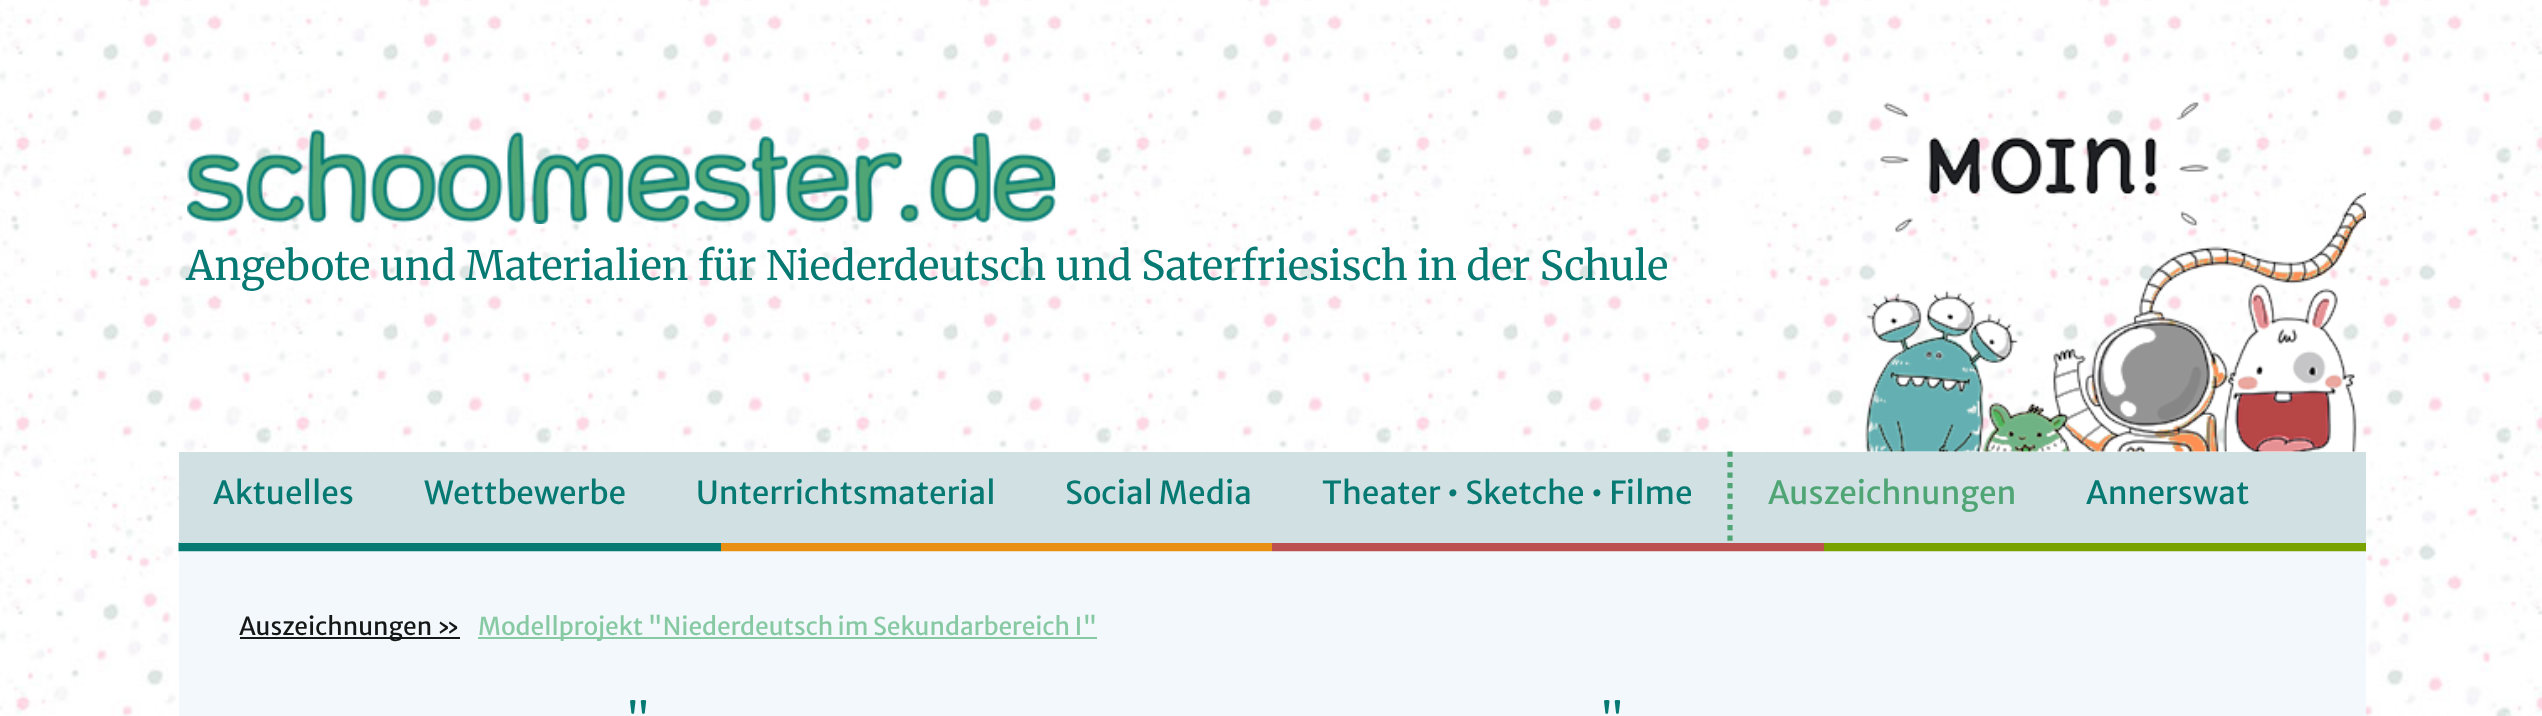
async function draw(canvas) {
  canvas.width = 2542
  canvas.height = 716
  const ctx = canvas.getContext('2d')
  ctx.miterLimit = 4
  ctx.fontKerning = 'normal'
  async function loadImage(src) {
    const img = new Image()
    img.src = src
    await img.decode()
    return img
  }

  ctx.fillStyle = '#fff'
  ctx.fillRect(0, 0, 2542, 716)
  ctx.drawImage(await loadImage('image0.png'), 0, 0, 2542, 716)
  ctx.drawImage(await loadImage('image1.png'), 1865, 102, 501, 350)
  ctx.drawImage(await loadImage('image2.png'), 187, 129, 869, 95)
  ctx.font = '300 40.25px Merriweather'
  ctx.fillStyle = '#067972'
  ctx.fillText('Angebote und Materialien für Niederdeutsch und Saterfriesisch in der Schule', 186, 280)
  ctx.fillStyle = '#f2f8fb'
  ctx.fillRect(179, 551, 2187, 165)
  ctx.drawImage(await loadImage('image3.png'), 178, 542, 2188, 10)
  ctx.fillStyle = '#d0e0e3'
  ctx.fillRect(179, 452, 2187, 91)
  ctx.font = '31.5px Merriweather Sans'
  ctx.fillStyle = '#067972'
  ctx.fillText('Aktuelles', 213, 504)
  ctx.fillText('Wettbewerbe', 424, 504)
  ctx.fillText('Unterrichtsmaterial', 696, 504)
  ctx.fillText('Social Media', 1065, 504)
  ctx.fillText('Theater • Sketche • Filme', 1322, 504)
  ctx.beginPath()
  ctx.moveTo(1730, 451.5)
  ctx.lineTo(1730, 542.5)
  ctx.strokeStyle = '#4fa574'
  ctx.lineWidth = 5.2
  ctx.setLineDash([5.25, 5.25])
  ctx.stroke()
  ctx.fillStyle = '#4fa574'
  ctx.fillText('Auszeichnungen', 1768, 504)
  ctx.fillStyle = '#067972'
  ctx.fillText('Annerswat', 2086, 504)
  ctx.fillStyle = '#161817'
  ctx.fillRect(240, 637, 220, 2)
  ctx.font = '24.5px Merriweather Sans'
  ctx.fillText('Auszeichnungen »', 239, 635)
  ctx.fillStyle = '#87c9a3'
  ctx.fillRect(478, 637, 619, 2)
  ctx.fillText('Modellprojekt "Niederdeutsch im Sekundarbereich I"', 478, 635)
  ctx.font = '60px Asap'
  ctx.fillStyle = '#067972'
  ctx.fillText('"', 627, 742)
  ctx.fillText('"', 1601, 742)
}

draw(document.querySelector('canvas'))
